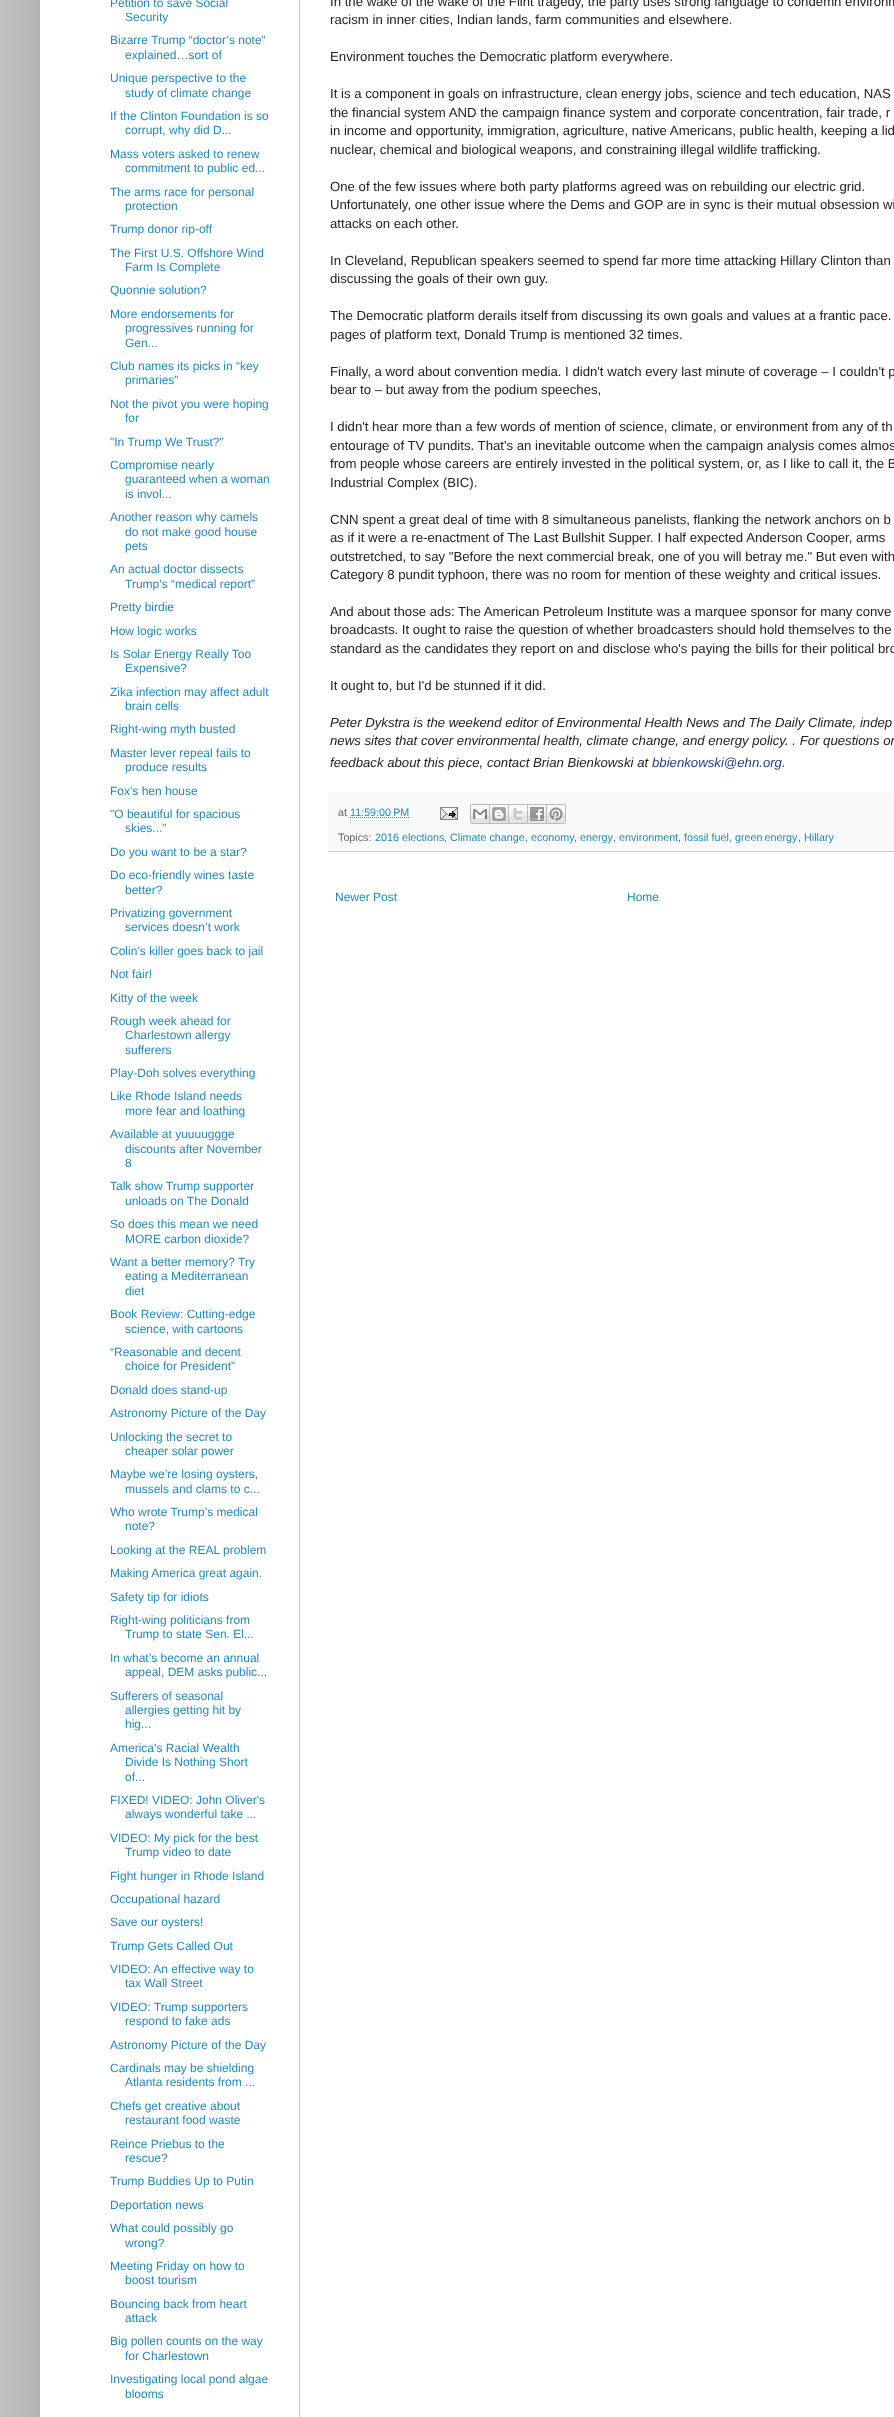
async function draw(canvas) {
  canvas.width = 894
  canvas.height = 2417
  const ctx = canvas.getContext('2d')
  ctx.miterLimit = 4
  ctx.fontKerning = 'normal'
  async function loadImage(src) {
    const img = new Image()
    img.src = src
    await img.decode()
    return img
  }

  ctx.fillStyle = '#c1c1c1'
  ctx.fillRect(0, 0, 894, 2417)
  ctx.fillStyle = '#00000026'
  ctx.filter = 'blur(20px)'
  ctx.beginPath()
  ctx.rect(40, -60, 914, 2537)
  ctx.fill()
  ctx.filter = 'none'
  ctx.fillStyle = '#fff'
  ctx.fillRect(40, 0, 854, 2417)
  ctx.font = '12px Liberation Sans'
  ctx.fillStyle = '#28b'
  ctx.fillText('Petition to save Social', 110, 7)
  ctx.fillText('Security', 125, 21)
  ctx.fillText('Bizarre Trump “doctor’s note”', 110, 44)
  ctx.fillText('explained…sort of', 125, 59)
  ctx.fillText('Unique perspective to the', 110, 82)
  ctx.fillText('study of climate change', 125, 97)
  ctx.fillText('If the Clinton Foundation is so', 110, 120)
  ctx.fillText('corrupt, why did D...', 125, 134)
  ctx.fillText('Mass voters asked to renew', 110, 158)
  ctx.fillText('commitment to public ed...', 125, 172)
  ctx.fillText('The arms race for personal', 110, 196)
  ctx.fillText('protection', 125, 210)
  ctx.fillText('Trump donor rip-off', 110, 233)
  ctx.fillText('The First U.S. Offshore Wind', 110, 257)
  ctx.fillText('Farm Is Complete', 125, 271)
  ctx.fillText('Quonnie solution?', 110, 294)
  ctx.fillText('More endorsements for', 110, 318)
  ctx.fillText('progressives running for', 125, 332)
  ctx.fillText('Gen...', 125, 347)
  ctx.fillText('Club names its picks in “key', 110, 370)
  ctx.fillText('primaries”', 125, 384)
  ctx.fillText('Not the pivot you were hoping', 110, 408)
  ctx.fillText('for', 125, 422)
  ctx.fillText('"In Trump We Trust?"', 110, 446)
  ctx.fillText('Compromise nearly', 110, 469)
  ctx.fillText('guaranteed when a woman', 125, 483)
  ctx.fillText('is invol...', 125, 498)
  ctx.fillText('Another reason why camels', 110, 521)
  ctx.fillText('do not make good house', 125, 536)
  ctx.fillText('pets', 125, 550)
  ctx.fillText('An actual doctor dissects', 110, 573)
  ctx.fillText('Trump’s “medical report”', 125, 588)
  ctx.fillText('Pretty birdie', 110, 611)
  ctx.fillText('How logic works', 110, 635)
  ctx.fillText('Is Solar Energy Really Too', 110, 658)
  ctx.fillText('Expensive?', 125, 672)
  ctx.fillText('Zika infection may affect adult', 110, 696)
  ctx.fillText('brain cells', 125, 710)
  ctx.fillText('Right-wing myth busted', 110, 733)
  ctx.fillText('Master lever repeal fails to', 110, 757)
  ctx.fillText('produce results', 125, 771)
  ctx.fillText('Fox\'s hen house', 110, 795)
  ctx.fillText('"O beautiful for spacious', 110, 818)
  ctx.fillText('skies..."', 125, 832)
  ctx.fillText('Do you want to be a star?', 110, 856)
  ctx.fillText('Do eco-friendly wines taste', 110, 879)
  ctx.fillText('better?', 125, 894)
  ctx.fillText('Privatizing government', 110, 917)
  ctx.fillText('services doesn’t work', 125, 931)
  ctx.fillText('Colin’s killer goes back to jail', 110, 955)
  ctx.fillText('Not fair!', 110, 978)
  ctx.fillText('Kitty of the week', 110, 1002)
  ctx.fillText('Rough week ahead for', 110, 1025)
  ctx.fillText('Charlestown allergy', 125, 1039)
  ctx.fillText('sufferers', 125, 1054)
  ctx.fillText('Play-Doh solves everything', 110, 1077)
  ctx.fillText('Like Rhode Island needs', 110, 1100)
  ctx.fillText('more fear and loathing', 125, 1115)
  ctx.fillText('Available at yuuuuggge', 110, 1138)
  ctx.fillText('discounts after November', 125, 1153)
  ctx.fillText('8', 125, 1167)
  ctx.fillText('Talk show Trump supporter', 110, 1190)
  ctx.fillText('unloads on The Donald', 125, 1205)
  ctx.fillText('So does this mean we need', 110, 1228)
  ctx.fillText('MORE carbon dioxide?', 125, 1243)
  ctx.fillText('Want a better memory? Try', 110, 1266)
  ctx.fillText('eating a Mediterranean', 125, 1280)
  ctx.fillText('diet', 125, 1295)
  ctx.fillText('Book Review: Cutting-edge', 110, 1318)
  ctx.fillText('science, with cartoons', 125, 1333)
  ctx.fillText('“Reasonable and decent', 110, 1356)
  ctx.fillText('choice for President”', 125, 1370)
  ctx.fillText('Donald does stand-up', 110, 1394)
  ctx.fillText('Astronomy Picture of the Day', 110, 1417)
  ctx.fillText('Unlocking the secret to', 110, 1441)
  ctx.fillText('cheaper solar power', 125, 1455)
  ctx.fillText('Maybe we’re losing oysters,', 110, 1478)
  ctx.fillText('mussels and clams to c...', 125, 1493)
  ctx.fillText('Who wrote Trump’s medical', 110, 1516)
  ctx.fillText('note?', 125, 1530)
  ctx.fillText('Looking at the REAL problem', 110, 1554)
  ctx.fillText('Making America great again.', 110, 1577)
  ctx.fillText('Safety tip for idiots', 110, 1601)
  ctx.fillText('Right-wing politicians from', 110, 1624)
  ctx.fillText('Trump to state Sen. El...', 125, 1638)
  ctx.fillText('In what’s become an annual', 110, 1662)
  ctx.fillText('appeal, DEM asks public...', 125, 1676)
  ctx.fillText('Sufferers of seasonal', 110, 1700)
  ctx.fillText('allergies getting hit by', 125, 1714)
  ctx.fillText('hig...', 125, 1728)
  ctx.fillText('America’s Racial Wealth', 110, 1752)
  ctx.fillText('Divide Is Nothing Short', 125, 1766)
  ctx.fillText('of...', 125, 1781)
  ctx.fillText('FIXED! VIDEO: John Oliver\'s', 110, 1804)
  ctx.fillText('always wonderful take ...', 125, 1818)
  ctx.fillText('VIDEO: My pick for the best', 110, 1842)
  ctx.fillText('Trump video to date', 125, 1856)
  ctx.fillText('Fight hunger in Rhode Island', 110, 1880)
  ctx.fillText('Occupational hazard', 110, 1903)
  ctx.fillText('Save our oysters!', 110, 1926)
  ctx.fillText('Trump Gets Called Out', 110, 1950)
  ctx.fillText('VIDEO: An effective way to', 110, 1973)
  ctx.fillText('tax Wall Street', 125, 1987)
  ctx.fillText('VIDEO: Trump supporters', 110, 2011)
  ctx.fillText('respond to fake ads', 125, 2025)
  ctx.fillText('Astronomy Picture of the Day', 110, 2049)
  ctx.fillText('Cardinals may be shielding', 110, 2072)
  ctx.fillText('Atlanta residents from ...', 125, 2086)
  ctx.fillText('Chefs get creative about', 110, 2110)
  ctx.fillText('restaurant food waste', 125, 2124)
  ctx.fillText('Reince Priebus to the', 110, 2148)
  ctx.fillText('rescue?', 125, 2162)
  ctx.fillText('Trump Buddies Up to Putin', 110, 2185)
  ctx.fillText('Deportation news', 110, 2209)
  ctx.fillText('What could possibly go', 110, 2232)
  ctx.fillText('wrong?', 125, 2247)
  ctx.fillText('Meeting Friday on how to', 110, 2270)
  ctx.fillText('boost tourism', 125, 2284)
  ctx.fillText('Bouncing back from heart', 110, 2308)
  ctx.fillText('attack', 125, 2322)
  ctx.fillText('Big pollen counts on the way', 110, 2345)
  ctx.fillText('for Charlestown', 125, 2360)
  ctx.fillText('Investigating local pond algae', 110, 2383)
  ctx.fillText('blooms', 125, 2398)
  ctx.font = '13.2px Liberation Sans'
  ctx.fillStyle = '#222'
  ctx.fillText('In the wake of the wake of the Flint tragedy, the party uses strong language to condemn environm', 330, 6)
  ctx.fillText('racism in inner cities, Indian lands, farm communities and elsewhere.', 330, 24)
  ctx.fillText('Environment touches the Democratic platform everywhere.', 330, 61)
  ctx.fillText('It is a component in goals on infrastructure, clean energy jobs, science and tech education, NAS', 330, 98)
  ctx.fillText('the financial system AND the campaign finance system and corporate concentration, fair trade, r', 330, 117)
  ctx.fillText('in income and opportunity, immigration, agriculture, native Americans, public health, keeping a lid', 330, 135)
  ctx.fillText('nuclear, chemical and biological weapons, and constraining illegal wildlife trafficking.', 330, 154)
  ctx.fillText('One of the few issues where both party platforms agreed was on rebuilding our electric grid.', 330, 191)
  ctx.fillText('Unfortunately, one other issue where the Dems and GOP are in sync is their mutual obsession wi', 330, 209)
  ctx.fillText('attacks on each other.', 330, 228)
  ctx.fillText('In Cleveland, Republican speakers seemed to spend far more time attacking Hillary Clinton than', 330, 265)
  ctx.fillText('discussing the goals of their own guy.', 330, 283)
  ctx.fillText('The Democratic platform derails itself from discussing its own goals and values at a frantic pace.', 330, 320)
  ctx.fillText('pages of platform text, Donald Trump is mentioned 32 times.', 330, 339)
  ctx.fillText('Finally, a word about convention media. I didn\'t watch every last minute of coverage – I couldn\'t p', 330, 376)
  ctx.fillText('bear to – but away from the podium speeches,', 330, 394)
  ctx.fillText('I didn\'t hear more than a few words of mention of science, climate, or environment from any of th', 330, 431)
  ctx.fillText('entourage of TV pundits. That\'s an inevitable outcome when the campaign analysis comes almos', 330, 450)
  ctx.fillText('from people whose careers are entirely invested in the political system, or, as I like to call it, the B', 330, 468)
  ctx.fillText('Industrial Complex (BIC).', 330, 487)
  ctx.fillText('CNN spent a great deal of time with 8 simultaneous panelists, flanking the network anchors on b', 330, 524)
  ctx.fillText('as if it were a re-enactment of The Last Bullshit Supper. I half expected Anderson Cooper, arms', 330, 542)
  ctx.fillText('outstretched, to say "Before the next commercial break, one of you will betray me." But even with', 330, 561)
  ctx.fillText('Category 8 pundit typhoon, there was no room for mention of these weighty and critical issues.', 330, 579)
  ctx.fillText('And about those ads: The American Petroleum Institute was a marquee sponsor for many conve', 330, 616)
  ctx.fillText('broadcasts. It ought to raise the question of whether broadcasters should hold themselves to the', 330, 634)
  ctx.fillText('standard as the candidates they report on and disclose who\'s paying the bills for their political bro', 330, 653)
  ctx.fillText('It ought to, but I\'d be stunned if it did.', 330, 690)
  ctx.font = 'italic 13.2px Liberation Sans'
  ctx.fillText('Peter Dykstra is the weekend editor of Environmental Health News and The Daily Climate, indep', 330, 727)
  ctx.fillText('news sites that cover environmental health, climate change, and energy policy. . For questions or', 330, 745)
  ctx.fillText('feedback about this piece, contact Brian Bienkowski at', 330, 767)
  ctx.fillStyle = '#253b8f'
  ctx.fillText('bbienkowski@ehn.org.', 652, 767)
  ctx.fillStyle = '#f9f9f9'
  ctx.fillRect(328, 793, 566, 58)
  ctx.fillStyle = '#ccc'
  ctx.fillRect(328, 851, 566, 1)
  ctx.font = '10.75px Liberation Sans'
  ctx.fillStyle = '#666'
  ctx.fillText('at', 338, 816)
  ctx.fillStyle = '#28b'
  ctx.fillText('11:59:00 PM', 350, 816)
  ctx.beginPath()
  ctx.moveTo(350, 817.5)
  ctx.lineTo(409.5, 817.5)
  ctx.strokeStyle = '#28b'
  ctx.setLineDash([1, 1])
  ctx.stroke()
  ctx.drawImage(await loadImage('image0.png'), 440, 807, 18, 13)
  ctx.drawImage(await loadImage('image1.png'), 470, 804, 20, 20)
  ctx.drawImage(await loadImage('image2.png'), 490, 804, 19, 20)
  ctx.drawImage(await loadImage('image3.png'), 509, 804, 19, 20)
  ctx.drawImage(await loadImage('image4.png'), 528, 804, 19, 20)
  ctx.drawImage(await loadImage('image5.png'), 547, 804, 19, 20)
  ctx.fillStyle = '#666'
  ctx.fillText('Topics:', 338, 841)
  ctx.fillStyle = '#28b'
  ctx.fillText('2016 elections', 375, 841)
  ctx.fillStyle = '#666'
  ctx.fillText(',', 444, 841)
  ctx.fillStyle = '#28b'
  ctx.fillText('Climate change', 450, 841)
  ctx.fillStyle = '#666'
  ctx.fillText(',', 525, 841)
  ctx.fillStyle = '#28b'
  ctx.fillText('economy', 531, 841)
  ctx.fillText('energy', 580, 841)
  ctx.fillText('environment', 619, 841)
  ctx.fillText('fossil fuel', 684, 841)
  ctx.wordSpacing = '-1px'
  ctx.fillText('green energy', 735, 841)
  ctx.wordSpacing = '0px'
  ctx.fillText('Hillary', 804, 841)
  ctx.fillStyle = '#666'
  ctx.fillText(',', 574, 841)
  ctx.fillText(',', 613, 841)
  ctx.fillText(',', 678, 841)
  ctx.fillText(',', 729, 841)
  ctx.fillText(',', 798, 841)
  ctx.font = '12px Liberation Sans'
  ctx.fillStyle = '#28b'
  ctx.fillText('Newer Post', 335, 901)
  ctx.fillText('Home', 627, 901)
  ctx.fillStyle = '#ccc'
  ctx.fillRect(299, 0, 1, 2417)
}

draw(document.querySelector('canvas'))
